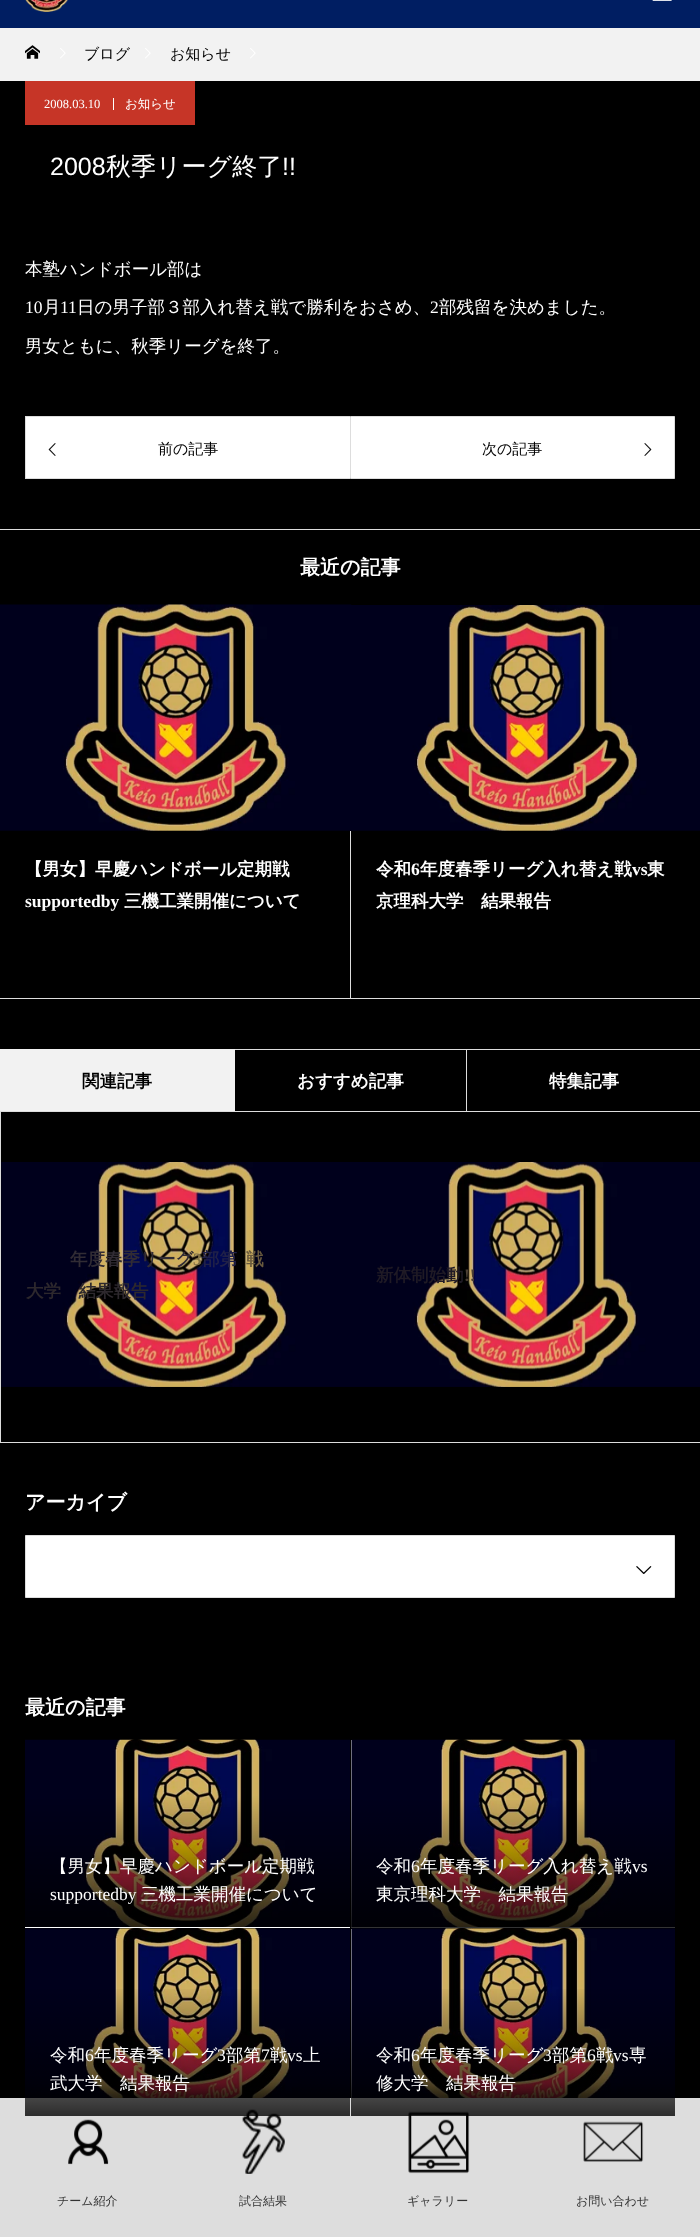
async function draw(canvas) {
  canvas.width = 700
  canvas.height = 2237
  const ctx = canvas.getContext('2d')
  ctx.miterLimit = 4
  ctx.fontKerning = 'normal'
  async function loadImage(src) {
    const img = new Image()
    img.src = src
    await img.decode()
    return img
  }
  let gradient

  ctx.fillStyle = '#000'
  ctx.fillRect(0, 0, 700, 2237)
  ctx.fillStyle = '#001e62'
  ctx.fillRect(0, 0, 700, 28)
  ctx.drawImage(await loadImage('image0.png'), 25, 0, 43, 12)
  ctx.drawImage(await loadImage('image1.png'), 652, 0, 20, 1)
  ctx.fillStyle = '#f2f2f2'
  ctx.fillRect(0, 28, 700, 53)
  ctx.drawImage(await loadImage('image2.png'), 25, 45, 15, 14)
  ctx.drawImage(await loadImage('image3.png'), 60, 48, 6, 11)
  ctx.font = '500 15px WenQuanYi Zen Hei'
  ctx.fillStyle = '#000'
  ctx.fillText('ブログ', 84, 59)
  ctx.drawImage(await loadImage('image3.png'), 145, 48, 6, 11)
  ctx.fillText('お知らせ', 170, 59)
  ctx.drawImage(await loadImage('image3.png'), 250, 48, 6, 11)
  ctx.fillStyle = '#c63527'
  ctx.fillRect(25, 81, 170, 44)
  ctx.font = '12.5px Liberation Serif'
  ctx.fillStyle = '#fff'
  ctx.fillText('2008.03.10', 44, 108)
  ctx.fillRect(113, 98, 1, 12)
  ctx.font = '500 12.5px WenQuanYi Zen Hei'
  ctx.fillText('お知らせ', 125, 108)
  ctx.font = '25px Liberation Sans'
  ctx.fillText('2008', 50, 175)
  ctx.font = '500 25px WenQuanYi Zen Hei'
  ctx.fillText('秋季リーグ終了', 106, 175)
  ctx.font = '25px Liberation Sans'
  ctx.fillText('!!', 282, 175)
  ctx.font = '500 17.5px WenQuanYi Zen Hei'
  ctx.fillText('本塾ハンドボール部は', 25, 275)
  ctx.font = '17.5px Liberation Serif'
  ctx.fillText('10', 25, 313)
  ctx.font = '500 17.5px WenQuanYi Zen Hei'
  ctx.fillText('月', 43, 313)
  ctx.font = '17.5px Liberation Serif'
  ctx.fillText('11', 60, 313)
  ctx.font = '500 17.5px WenQuanYi Zen Hei'
  ctx.fillText('日の男子部３部入れ替え戦で勝利をおさめ、', 77, 313)
  ctx.font = '17.5px Liberation Serif'
  ctx.fillText('2', 430, 313)
  ctx.font = '500 17.5px WenQuanYi Zen Hei'
  ctx.fillText('部残留を決めました。', 439, 313)
  ctx.fillText('男女ともに、秋季リーグを終了。', 25, 352)
  ctx.fillRect(26, 417, 324, 61)
  ctx.fillStyle = '#ddd'
  ctx.fillRect(25, 416, 325, 1)
  ctx.fillRect(25, 478, 325, 1)
  ctx.fillRect(25, 416, 1, 63)
  ctx.drawImage(await loadImage('image4.png'), 48, 443, 8, 13)
  ctx.font = '500 15px WenQuanYi Zen Hei'
  ctx.fillStyle = '#000'
  ctx.fillText('前の記事', 158, 454)
  ctx.fillStyle = '#fff'
  ctx.beginPath()
  ctx.rect(350.5, 416.5, 324, 62)
  ctx.fill()
  ctx.strokeStyle = '#ddd'
  ctx.stroke()
  ctx.fillStyle = '#000'
  ctx.fillText('次の記事', 482, 454)
  ctx.drawImage(await loadImage('image5.png'), 644, 443, 8, 13)
  ctx.fillStyle = '#ddd'
  ctx.fillRect(0, 529, 700, 1)
  ctx.fillRect(0, 998, 700, 1)
  ctx.font = 'bold 20px WenQuanYi Zen Hei'
  ctx.fillStyle = '#fff'
  ctx.fillText('最近の記事', 300, 574)
  ctx.drawImage(await loadImage('image6.png'), 0, 604, 352, 227)
  ctx.fillStyle = '#ddd'
  ctx.fillRect(350, 831, 1, 167)
  ctx.font = 'bold 17.5px WenQuanYi Zen Hei'
  ctx.fillStyle = '#fff'
  ctx.fillText('【男女】早慶ハンドボール定期戦', 25, 875)
  ctx.font = 'bold 17.5px Liberation Serif'
  ctx.fillText('supportedby', 25, 907)
  ctx.font = 'bold 17.5px WenQuanYi Zen Hei'
  ctx.fillText('三機工業開催について', 124, 907)
  ctx.drawImage(await loadImage('image7.png'), 351, 605, 349, 226)
  ctx.fillText('令和', 376, 875)
  ctx.font = 'bold 17.5px Liberation Serif'
  ctx.fillText('6', 411, 875)
  ctx.font = 'bold 17.5px WenQuanYi Zen Hei'
  ctx.fillText('年度春季リーグ入れ替え戦', 420, 875)
  ctx.font = 'bold 17.5px Liberation Serif'
  ctx.fillText('vs', 632, 875)
  ctx.font = 'bold 17.5px WenQuanYi Zen Hei'
  ctx.fillText('東', 647, 875)
  ctx.fillText('京理科大学　結果報告', 376, 907)
  ctx.fillStyle = '#ddd'
  ctx.fillRect(234, 1049, 466, 1)
  ctx.fillStyle = '#f2f2f2'
  ctx.fillRect(0, 1049, 235, 62)
  ctx.fillStyle = '#000'
  ctx.fillText('関連記事', 82, 1087)
  ctx.fillStyle = '#fff'
  ctx.fillText('おすすめ記事', 297, 1087)
  ctx.fillStyle = '#ddd'
  ctx.fillRect(466, 1049, 1, 62)
  ctx.fillStyle = '#fff'
  ctx.fillText('特集記事', 549, 1087)
  ctx.strokeRect(0.5, 1111.5, 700, 331)
  ctx.drawImage(await loadImage('image8.png'), 1, 1162, 351, 225)
  ctx.fillStyle = '#312c34'
  ctx.fillText('年度春季リーグ', 70, 1265)
  ctx.font = 'bold 17.5px Liberation Serif'
  ctx.fillStyle = '#817044'
  ctx.fillText('3', 193, 1265)
  ctx.font = 'bold 17.5px WenQuanYi Zen Hei'
  ctx.fillStyle = '#202148'
  ctx.fillText('部第', 202, 1265)
  ctx.fillStyle = '#695a3e'
  ctx.fillText('戦', 246, 1265)
  ctx.fillStyle = '#2d282d'
  ctx.fillText('大学　結果報告', 26, 1297)
  ctx.drawImage(await loadImage('image9.png'), 351, 1162, 349, 225)
  ctx.fillStyle = '#1f1a25'
  ctx.fillText('新体制始動', 376, 1281)
  ctx.font = 'bold 17.5px Liberation Serif'
  ctx.fillStyle = '#4c4034'
  ctx.fillText('!!', 464, 1281)
  ctx.font = 'bold 20px WenQuanYi Zen Hei'
  ctx.fillStyle = '#fff'
  ctx.fillText('アーカイブ', 25, 1509)
  ctx.beginPath()
  ctx.rect(25.5, 1535.5, 649, 62)
  ctx.fill()
  ctx.stroke()
  ctx.drawImage(await loadImage('image10.png'), 636, 1566, 16, 8)
  ctx.fillText('最近の記事', 25, 1714)
  ctx.fillRect(25, 1927, 325, 1)
  ctx.drawImage(await loadImage('image11.png'), 25, 1739, 325, 188)
  ctx.font = '500 17.5px WenQuanYi Zen Hei'
  ctx.fillText('【男女】早慶ハンドボール定期戦', 50, 1872)
  ctx.font = '17.5px Liberation Serif'
  ctx.fillText('supportedby', 50, 1900)
  ctx.font = '500 17.5px WenQuanYi Zen Hei'
  ctx.fillText('三機工業開催について', 141, 1900)
  ctx.fillRect(351, 1740, 324, 188)
  ctx.drawImage(await loadImage('image12.png'), 351, 1739, 324, 188)
  gradient = ctx.createLinearGradient(513, 1796, 513, 1928)
  gradient.addColorStop(0, '#00000000')
  gradient.addColorStop(1, '#000000cc')
  ctx.fillStyle = gradient
  ctx.fillRect(351, 1800, 324, 128)
  ctx.fillStyle = '#fff'
  ctx.fillText('令和', 376, 1872)
  ctx.font = '17.5px Liberation Serif'
  ctx.fillText('6', 411, 1872)
  ctx.font = '500 17.5px WenQuanYi Zen Hei'
  ctx.fillText('年度春季リーグ入れ替え戦', 420, 1872)
  ctx.font = '17.5px Liberation Serif'
  ctx.fillText('vs', 632, 1872)
  ctx.font = '500 17.5px WenQuanYi Zen Hei'
  ctx.fillText('東京理科大学　結果報告', 376, 1900)
  ctx.drawImage(await loadImage('image13.png'), 25, 1928, 325, 170)
  ctx.fillRect(351, 1929, 1, 169)
  ctx.drawImage(await loadImage('image14.png'), 351, 1928, 324, 170)
  ctx.fillStyle = '#00000066'
  ctx.filter = 'blur(6px)'
  ctx.beginPath()
  ctx.rect(0, 2091, 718, 140)
  ctx.fill()
  ctx.filter = 'none'
  ctx.fillStyle = '#ddd'
  ctx.fillRect(0, 2098, 700, 139)
  ctx.drawImage(await loadImage('image16.png'), 242, 2109, 43, 65)
  gradient = ctx.createLinearGradient(188, 1985, 188, 2116)
  gradient.addColorStop(0, '#00000000')
  gradient.addColorStop(1, '#000000cc')
  ctx.fillStyle = gradient
  ctx.fillRect(25, 1989, 325, 127)
  ctx.fillStyle = '#fff'
  ctx.fillText('令和', 50, 2061)
  ctx.font = '17.5px Liberation Serif'
  ctx.fillText('6', 85, 2061)
  ctx.font = '500 17.5px WenQuanYi Zen Hei'
  ctx.fillText('年度春季リーグ', 94, 2061)
  ctx.font = '17.5px Liberation Serif'
  ctx.fillText('3', 217, 2061)
  ctx.font = '500 17.5px WenQuanYi Zen Hei'
  ctx.fillText('部第', 226, 2061)
  ctx.font = '17.5px Liberation Serif'
  ctx.fillText('7', 261, 2061)
  ctx.font = '500 17.5px WenQuanYi Zen Hei'
  ctx.fillText('戦', 270, 2061)
  ctx.font = '17.5px Liberation Serif'
  ctx.fillText('vs', 287, 2061)
  ctx.font = '500 17.5px WenQuanYi Zen Hei'
  ctx.fillText('上', 303, 2061)
  ctx.fillText('武大学　結果報告', 50, 2089)
  ctx.drawImage(await loadImage('image17.png'), 408, 2111, 62, 63)
  gradient = ctx.createLinearGradient(513, 1985, 513, 2116)
  gradient.addColorStop(0, '#00000000')
  gradient.addColorStop(1, '#000000cc')
  ctx.fillStyle = gradient
  ctx.fillRect(351, 1989, 324, 127)
  ctx.fillStyle = '#fff'
  ctx.fillText('令和', 376, 2061)
  ctx.font = '17.5px Liberation Serif'
  ctx.fillText('6', 411, 2061)
  ctx.font = '500 17.5px WenQuanYi Zen Hei'
  ctx.fillText('年度春季リーグ', 420, 2061)
  ctx.font = '17.5px Liberation Serif'
  ctx.fillText('3', 543, 2061)
  ctx.font = '500 17.5px WenQuanYi Zen Hei'
  ctx.fillText('部第', 552, 2061)
  ctx.font = '17.5px Liberation Serif'
  ctx.fillText('6', 587, 2061)
  ctx.font = '500 17.5px WenQuanYi Zen Hei'
  ctx.fillText('戦', 596, 2061)
  ctx.font = '17.5px Liberation Serif'
  ctx.fillText('vs', 613, 2061)
  ctx.font = '500 17.5px WenQuanYi Zen Hei'
  ctx.fillText('専', 629, 2061)
  ctx.fillText('修大学　結果報告', 376, 2089)
  ctx.drawImage(await loadImage('image15.png'), 68, 2119, 41, 46)
  ctx.font = '500 12px WenQuanYi Zen Hei'
  ctx.fillStyle = '#333'
  ctx.fillText('チーム紹介', 57, 2205)
  ctx.fillText('試合結果', 239, 2205)
  ctx.fillText('ギャラリー', 407, 2205)
  ctx.drawImage(await loadImage('image18.png'), 583, 2121, 61, 41)
  ctx.fillText('お問い合わせ', 576, 2205)
}

draw(document.querySelector('canvas'))
